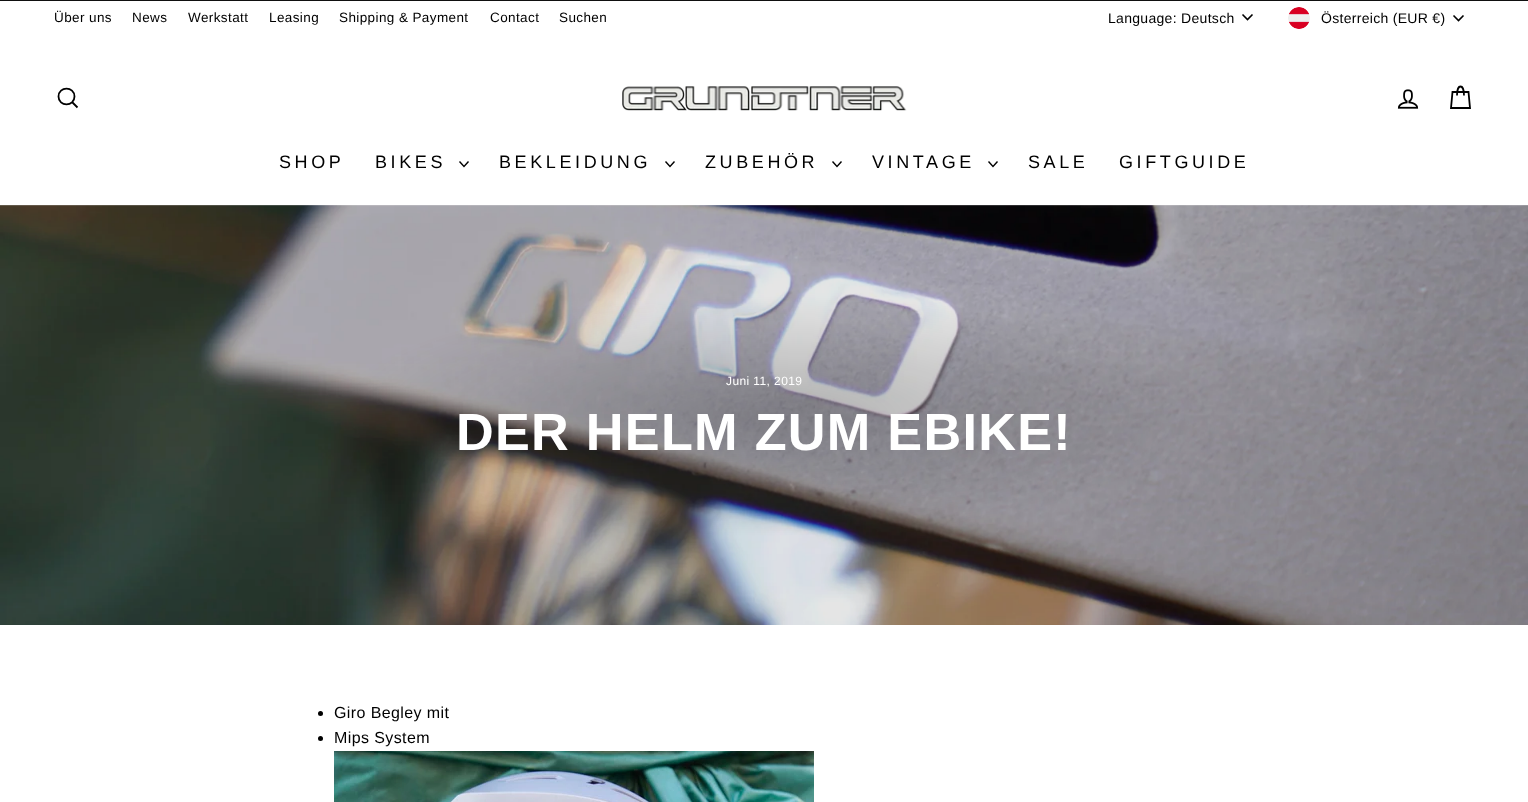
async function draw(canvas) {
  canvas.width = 1528
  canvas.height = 802
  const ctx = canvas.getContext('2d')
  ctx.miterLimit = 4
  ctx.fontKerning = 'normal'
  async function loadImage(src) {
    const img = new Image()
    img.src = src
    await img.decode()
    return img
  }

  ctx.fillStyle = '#fff'
  ctx.fillRect(0, 0, 1528, 802)
  ctx.fillStyle = '#0f0f0f'
  ctx.fillRect(0, 0, 1528, 1)
  ctx.letterSpacing = '0.4px'
  ctx.font = '13.5px Arimo'
  ctx.fillStyle = '#000'
  ctx.fillText('Über uns', 54, 22)
  ctx.fillText('News', 132, 22)
  ctx.fillText('Werkstatt', 188, 22)
  ctx.fillText('Leasing', 269, 22)
  ctx.fillText('Shipping & Payment', 339, 22)
  ctx.fillText('Contact', 490, 22)
  ctx.fillText('Suchen', 559, 22)
  ctx.letterSpacing = '0.3px'
  ctx.font = '14px Arimo'
  ctx.fillText('Language: Deutsch', 1108, 23)
  ctx.beginPath()
  ctx.moveTo(1242.5, 14.5)
  ctx.lineTo(1247.5, 19.5)
  ctx.lineTo(1252.5, 14.5)
  ctx.strokeStyle = '#000'
  ctx.lineWidth = 1.6
  ctx.stroke()
  ctx.drawImage(await loadImage('image0.png'), 1288, 7, 22, 22)
  ctx.fillText('Österreich (EUR €)', 1321, 23)
  ctx.beginPath()
  ctx.moveTo(1453.5, 15.5)
  ctx.lineTo(1458.5, 20.5)
  ctx.lineTo(1463.5, 15.5)
  ctx.stroke()
  ctx.beginPath()
  ctx.moveTo(74.5, 96.5)
  ctx.bezierCurveTo(74.5, 107, 58.5, 107, 58.5, 96.5)
  ctx.bezierCurveTo(58.5, 86, 74.5, 86, 74.5, 96.5)
  ctx.closePath()
  ctx.moveTo(77.5, 107.5)
  ctx.lineTo(72.5, 102.5)
  ctx.lineWidth = 1.8
  ctx.stroke()
  ctx.drawImage(await loadImage('image1.png'), 622, 86, 285, 25)
  ctx.drawImage(await loadImage('image2.png'), 1397, 89, 22, 20)
  ctx.beginPath()
  ctx.moveTo(1457, 95.5)
  ctx.bezierCurveTo(1457, 83.5, 1464, 83.5, 1464, 95.5)
  ctx.moveTo(1452.5, 92)
  ctx.lineTo(1468.5, 92)
  ctx.lineTo(1470, 108)
  ctx.lineTo(1451, 108)
  ctx.closePath()
  ctx.stroke()
  ctx.letterSpacing = '3.6px'
  ctx.font = '18px Arimo'
  ctx.fillText('SHOP', 279, 168)
  ctx.fillText('BIKES', 375, 168)
  ctx.beginPath()
  ctx.moveTo(459.5, 161.5)
  ctx.lineTo(464, 166.5)
  ctx.lineTo(468.5, 161.5)
  ctx.lineWidth = 1.4
  ctx.stroke()
  ctx.fillText('BEKLEIDUNG', 499, 168)
  ctx.beginPath()
  ctx.moveTo(665.5, 161.5)
  ctx.lineTo(670, 166.5)
  ctx.lineTo(674.5, 161.5)
  ctx.stroke()
  ctx.fillText('ZUBEHÖR', 705, 168)
  ctx.beginPath()
  ctx.moveTo(832.5, 161.5)
  ctx.lineTo(837, 166.5)
  ctx.lineTo(841.5, 161.5)
  ctx.stroke()
  ctx.fillText('VINTAGE', 872, 168)
  ctx.beginPath()
  ctx.moveTo(988.5, 161.5)
  ctx.lineTo(993, 166.5)
  ctx.lineTo(997.5, 161.5)
  ctx.stroke()
  ctx.fillText('SALE', 1028, 168)
  ctx.fillText('GIFTGUIDE', 1119, 168)
  ctx.drawImage(await loadImage('image3.png'), 0, 205, 1528, 420)
  ctx.letterSpacing = '0.4px'
  ctx.font = '12px Arimo'
  ctx.fillStyle = '#fff'
  ctx.fillText('Juni 11, 2019', 726, 385)
  ctx.letterSpacing = '1.25px'
  ctx.font = 'bold 52.25px Arimo'
  ctx.fillText('DER HELM ZUM EBIKE!', 456, 450)
  ctx.fillStyle = '#000'
  ctx.beginPath()
  ctx.arc(320.5, 713.5, 2.5, 0, 2 * Math.PI)
  ctx.fill()
  ctx.letterSpacing = '0.4px'
  ctx.font = '16px Arimo'
  ctx.fillText('Giro Begley mit', 334, 718)
  ctx.beginPath()
  ctx.arc(320.5, 738.5, 2.5, 0, 2 * Math.PI)
  ctx.fill()
  ctx.fillText('Mips System', 334, 743)
  ctx.drawImage(await loadImage('image4.png'), 334, 751, 480, 51)
}

draw(document.querySelector('canvas'))
